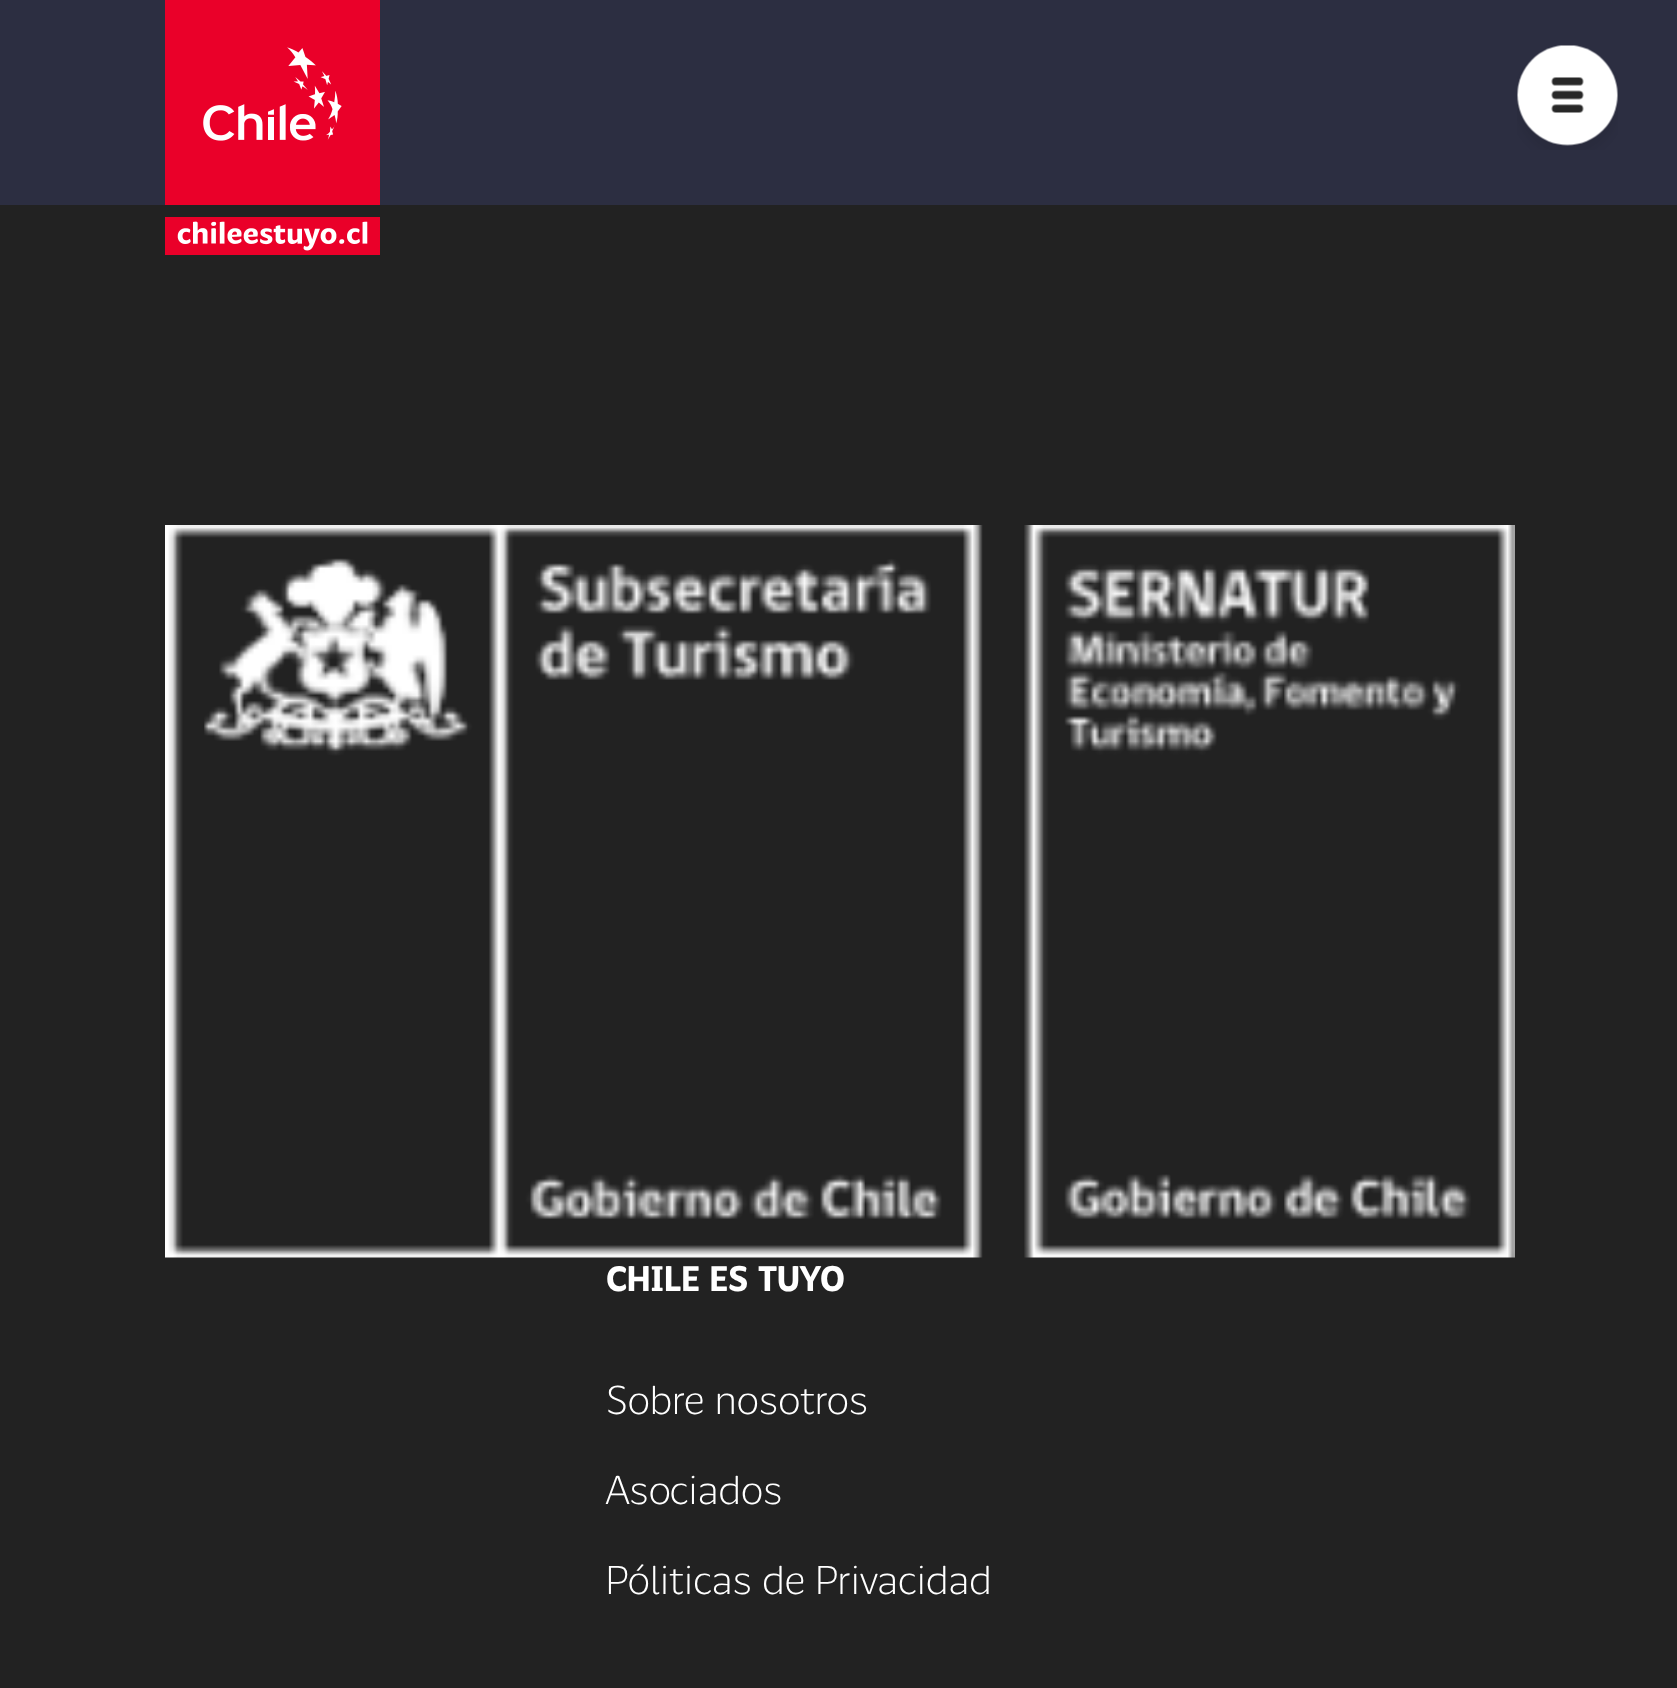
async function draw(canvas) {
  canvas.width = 1677
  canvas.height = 1688
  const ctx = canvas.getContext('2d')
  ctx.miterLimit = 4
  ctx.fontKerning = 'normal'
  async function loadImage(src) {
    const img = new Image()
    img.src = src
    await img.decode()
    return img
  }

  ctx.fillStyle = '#222'
  ctx.fillRect(0, 0, 1677, 1688)
  ctx.fillStyle = '#2c2e41'
  ctx.fillRect(0, 0, 1677, 205)
  ctx.drawImage(await loadImage('image0.png'), 165, 0, 215, 255)
  ctx.drawImage(await loadImage('image1.png'), 1517, 45, 101, 105)
  ctx.drawImage(await loadImage('image2.png'), 165, 525, 1350, 733)
  ctx.font = 'bold 35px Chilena'
  ctx.fillStyle = '#fff'
  ctx.fillText('CHILE ES TUYO', 606, 1291)
  ctx.font = '300 40px Chilena'
  ctx.fillText('Sobre nosotros', 606, 1414)
  ctx.fillText('Asociados', 606, 1504)
  ctx.fillText('Póliticas de Privacidad', 606, 1594)
}

draw(document.querySelector('canvas'))
